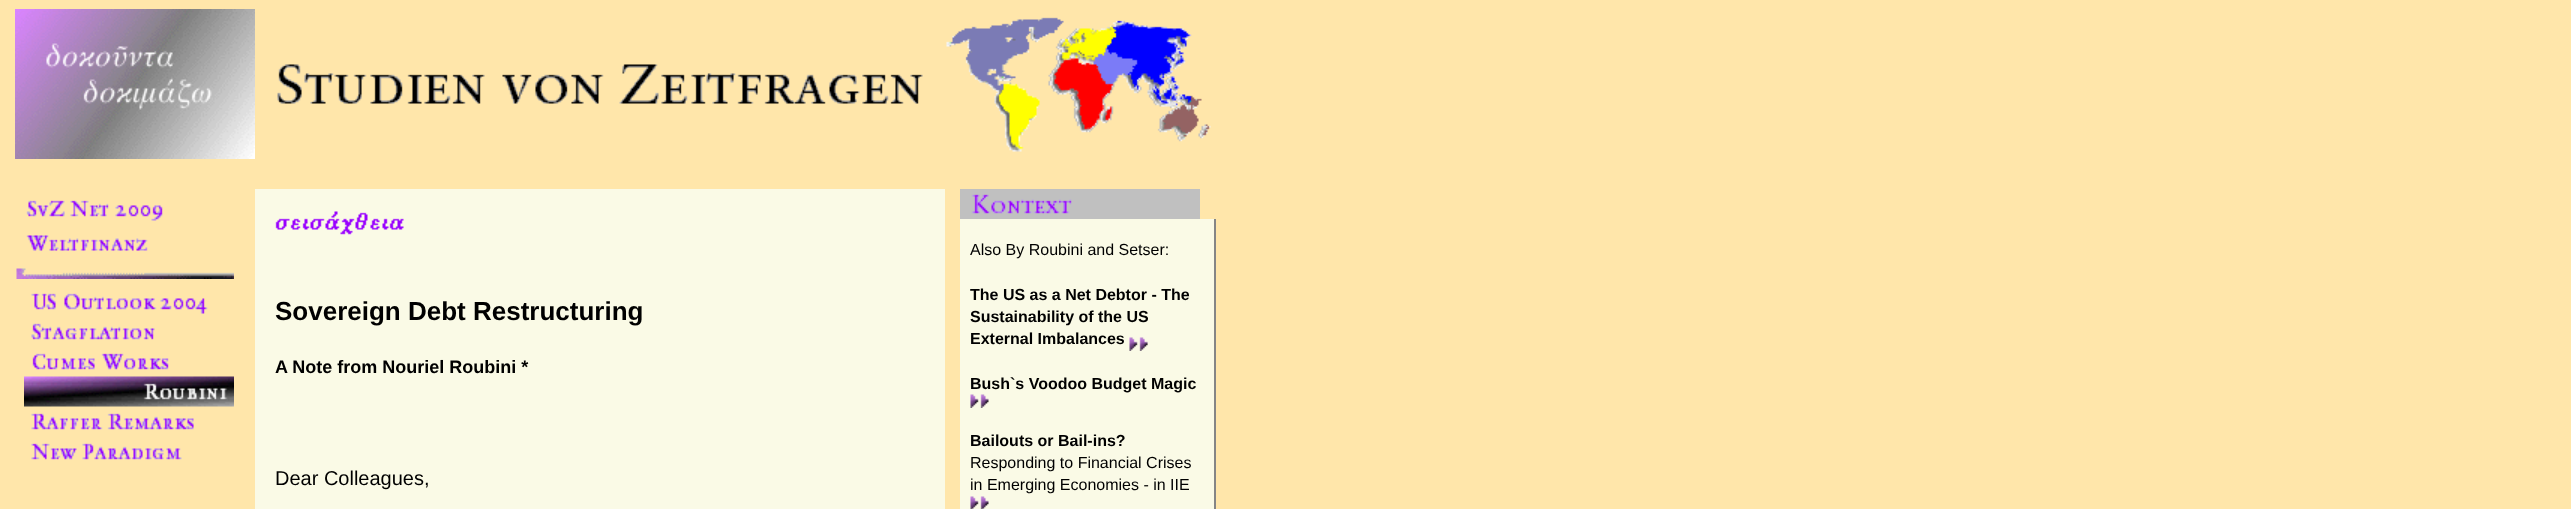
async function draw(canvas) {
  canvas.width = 2571
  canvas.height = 509
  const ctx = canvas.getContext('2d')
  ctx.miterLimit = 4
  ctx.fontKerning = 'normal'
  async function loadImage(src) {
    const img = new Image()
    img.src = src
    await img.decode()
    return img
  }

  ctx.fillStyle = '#ffe6aa'
  ctx.fillRect(0, 0, 2571, 509)
  ctx.drawImage(await loadImage('image0.png'), 15, 9, 240, 150)
  ctx.drawImage(await loadImage('image1.png'), 26, 200, 137, 21)
  ctx.drawImage(await loadImage('image2.png'), 26, 235, 122, 16)
  ctx.drawImage(await loadImage('image3.png'), 16, 268, 218, 11)
  ctx.drawImage(await loadImage('image4.png'), 31, 293, 177, 21)
  ctx.drawImage(await loadImage('image5.png'), 31, 323, 124, 17)
  ctx.drawImage(await loadImage('image6.png'), 32, 353, 137, 17)
  ctx.drawImage(await loadImage('image7.png'), 24, 376, 210, 31)
  ctx.drawImage(await loadImage('image8.png'), 31, 413, 163, 17)
  ctx.drawImage(await loadImage('image9.png'), 31, 443, 151, 17)
  ctx.drawImage(await loadImage('image10.png'), 277, 64, 646, 40)
  ctx.fillStyle = '#fafae6'
  ctx.fillRect(255, 189, 690, 320)
  ctx.drawImage(await loadImage('image11.png'), 275, 211, 129, 24)
  ctx.font = 'bold 26px Liberation Sans'
  ctx.fillStyle = '#000'
  ctx.fillText('Sovereign Debt Restructuring', 275, 320)
  ctx.font = 'bold 18px Liberation Sans'
  ctx.fillText('A Note from Nouriel Roubini *', 275, 373)
  ctx.font = '20px Liberation Sans'
  ctx.fillText('Dear Colleagues,', 275, 485)
  ctx.drawImage(await loadImage('image12.png'), 946, 17, 265, 135)
  ctx.drawImage(await loadImage('image13.png'), 960, 189, 240, 30)
  ctx.fillStyle = '#fafae6'
  ctx.fillRect(960, 219, 254, 290)
  ctx.fillStyle = '#858585'
  ctx.fillRect(1214, 219, 2, 290)
  ctx.font = '16px Liberation Sans'
  ctx.fillStyle = '#000'
  ctx.fillText('Also By Roubini and Setser:', 970, 255)
  ctx.font = 'bold 16px Liberation Sans'
  ctx.fillText('The US as a Net Debtor - The', 970, 300)
  ctx.fillText('Sustainability of the US', 970, 322)
  ctx.fillText('External Imbalances', 970, 344)
  ctx.drawImage(await loadImage('image14.png'), 1129, 337, 19, 14)
  ctx.fillText('Bush`s Voodoo Budget Magic', 970, 389)
  ctx.drawImage(await loadImage('image15.png'), 970, 394, 19, 14)
  ctx.fillText('Bailouts or Bail-ins?', 970, 446)
  ctx.font = '16px Liberation Sans'
  ctx.fillText('Responding to Financial Crises', 970, 468)
  ctx.fillText('in Emerging Economies - in IIE', 970, 490)
  ctx.drawImage(await loadImage('image16.png'), 970, 496, 19, 13)
}

draw(document.querySelector('canvas'))
